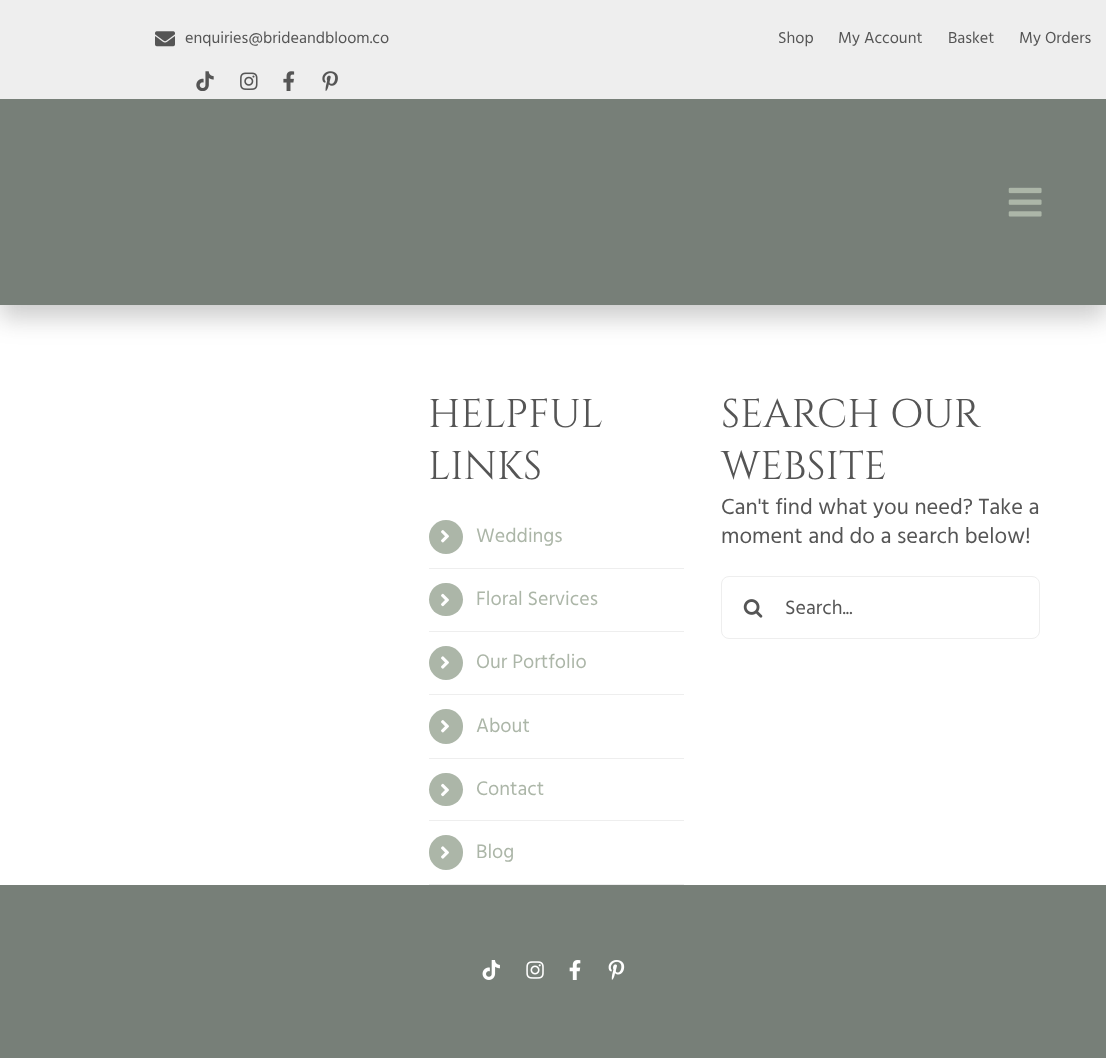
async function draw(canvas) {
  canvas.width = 1106
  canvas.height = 1058
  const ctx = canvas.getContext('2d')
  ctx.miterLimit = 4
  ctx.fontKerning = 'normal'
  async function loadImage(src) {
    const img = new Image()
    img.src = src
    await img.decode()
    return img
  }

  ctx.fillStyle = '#fff'
  ctx.fillRect(0, 0, 1106, 1058)
  ctx.fillStyle = '#5555554d'
  ctx.filter = 'blur(12.5px)'
  ctx.beginPath()
  ctx.rect(0, 111, 1106, 207)
  ctx.fill()
  ctx.filter = 'none'
  ctx.fillStyle = '#eee'
  ctx.fillRect(0, 0, 1106, 99)
  ctx.drawImage(await loadImage('image0.png'), 155, 31, 20, 16)
  ctx.font = '16.25px Hind Madurai'
  ctx.fillStyle = '#555'
  ctx.fillText('enquiries@brideandbloom.co', 185, 43)
  ctx.fillText('Shop', 778, 43)
  ctx.fillText('My Account', 838, 43)
  ctx.fillText('Basket', 948, 43)
  ctx.fillText('My Orders', 1019, 43)
  ctx.drawImage(await loadImage('image1.png'), 196, 71, 18, 20)
  ctx.drawImage(await loadImage('image2.png'), 240, 72, 18, 18)
  ctx.drawImage(await loadImage('image3.png'), 283, 71, 12, 20)
  ctx.drawImage(await loadImage('image4.png'), 322, 71, 16, 20)
  ctx.fillStyle = '#777f78'
  ctx.fillRect(0, 99, 1106, 206)
  ctx.drawImage(await loadImage('image5.png'), 1008, 187, 34, 30)
  ctx.font = '40px Cinzel'
  ctx.fillStyle = '#555'
  ctx.fillText('HELPFUL', 428, 427)
  ctx.fillText('LINKS', 428, 479)
  ctx.fillStyle = '#eee'
  ctx.fillRect(429, 568, 255, 1)
  ctx.fillStyle = '#acb6a8'
  ctx.beginPath()
  ctx.arc(446, 537, 17, 0, 2 * Math.PI)
  ctx.fill()
  ctx.drawImage(await loadImage('image6.png'), 441, 530, 8, 13)
  ctx.font = '20px Hind Madurai'
  ctx.fillText('Weddings', 476, 542)
  ctx.fillStyle = '#eee'
  ctx.fillRect(429, 631, 255, 1)
  ctx.fillStyle = '#acb6a8'
  ctx.beginPath()
  ctx.roundRect(429, 583, 34, 33, 16.5)
  ctx.fill()
  ctx.drawImage(await loadImage('image7.png'), 441, 593, 8, 14)
  ctx.fillText('Floral Services', 476, 605)
  ctx.fillStyle = '#eee'
  ctx.fillRect(429, 694, 255, 1)
  ctx.fillStyle = '#acb6a8'
  ctx.beginPath()
  ctx.arc(446, 663, 17, 0, 2 * Math.PI)
  ctx.fill()
  ctx.drawImage(await loadImage('image8.png'), 441, 656, 8, 13)
  ctx.fillText('Our Portfolio', 476, 668)
  ctx.fillStyle = '#eee'
  ctx.fillRect(429, 758, 255, 1)
  ctx.fillStyle = '#acb6a8'
  ctx.beginPath()
  ctx.roundRect(429, 709, 34, 35, 17)
  ctx.fill()
  ctx.drawImage(await loadImage('image6.png'), 441, 720, 8, 13)
  ctx.fillText('About', 476, 732)
  ctx.fillStyle = '#eee'
  ctx.fillRect(429, 820, 255, 1)
  ctx.fillStyle = '#acb6a8'
  ctx.beginPath()
  ctx.roundRect(429, 773, 34, 33, 16.5)
  ctx.fill()
  ctx.drawImage(await loadImage('image7.png'), 441, 783, 8, 14)
  ctx.fillText('Contact', 476, 795)
  ctx.fillStyle = '#eee'
  ctx.fillRect(429, 884, 255, 1)
  ctx.fillStyle = '#acb6a8'
  ctx.beginPath()
  ctx.roundRect(429, 835, 34, 35, 17)
  ctx.fill()
  ctx.drawImage(await loadImage('image8.png'), 441, 846, 8, 13)
  ctx.fillText('Blog', 476, 858)
  ctx.font = '40px Cinzel'
  ctx.fillStyle = '#555'
  ctx.fillText('SEARCH OUR', 721, 427)
  ctx.fillText('WEBSITE', 721, 479)
  ctx.font = '22.5px Hind Madurai'
  ctx.fillText('Can\'t find what you need? Take a', 721, 514)
  ctx.fillText('moment and do a search below!', 721, 543)
  ctx.beginPath()
  ctx.roundRect(721.5, 576.5, 318, 62, 7.5)
  ctx.strokeStyle = '#eee'
  ctx.stroke()
  ctx.drawImage(await loadImage('image9.png'), 743, 599, 20, 19)
  ctx.font = '20px Hind Madurai'
  ctx.fillText('Search...', 785, 614)
  ctx.fillStyle = '#777f78'
  ctx.fillRect(0, 885, 1106, 173)
  ctx.drawImage(await loadImage('image10.png'), 482, 960, 18, 20)
  ctx.drawImage(await loadImage('image11.png'), 526, 961, 18, 18)
  ctx.drawImage(await loadImage('image12.png'), 569, 960, 12, 20)
  ctx.drawImage(await loadImage('image13.png'), 608, 960, 17, 20)
}

draw(document.querySelector('canvas'))
